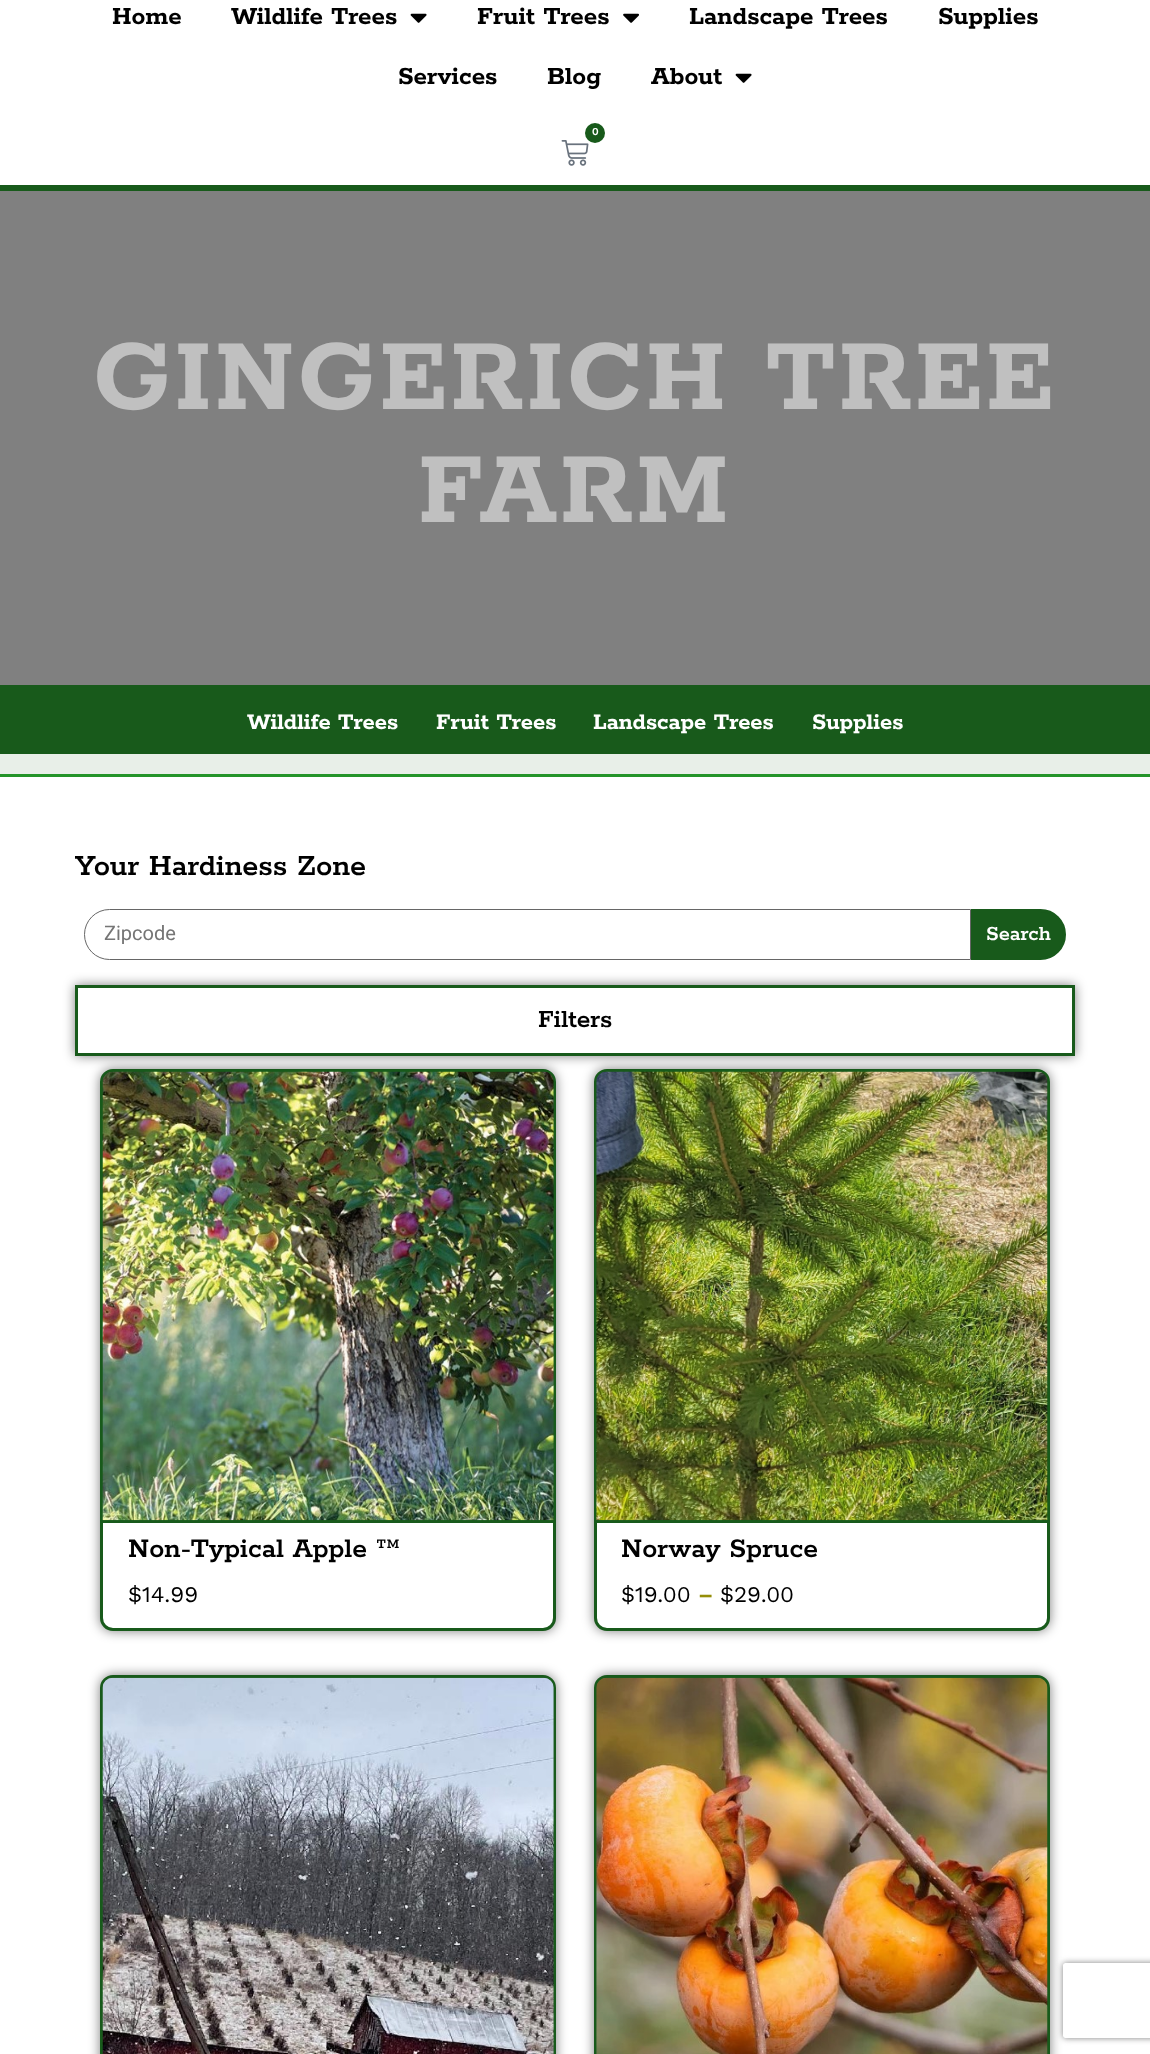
async function draw(canvas) {
  canvas.width = 1150
  canvas.height = 2054
  const ctx = canvas.getContext('2d')
  ctx.miterLimit = 4
  ctx.fontKerning = 'normal'
  async function loadImage(src) {
    const img = new Image()
    img.src = src
    await img.decode()
    return img
  }

  ctx.fillStyle = '#fff'
  ctx.fillRect(0, 0, 1150, 2054)
  ctx.fillStyle = '#185a1b'
  ctx.fillRect(0, 185, 1150, 6)
  ctx.font = 'bold 27.5px Rokkitt'
  ctx.fillStyle = '#000'
  ctx.fillText('Home', 112, 24)
  ctx.fillText('Wildlife Trees', 231, 24)
  ctx.drawImage(await loadImage('image0.png'), 410, 13, 17, 10)
  ctx.fillText('Fruit Trees', 477, 24)
  ctx.drawImage(await loadImage('image1.png'), 623, 13, 16, 10)
  ctx.fillText('Landscape Trees', 689, 24)
  ctx.fillText('Supplies', 938, 24)
  ctx.fillText('Services', 398, 84)
  ctx.fillText('Blog', 547, 84)
  ctx.fillText('About', 651, 84)
  ctx.drawImage(await loadImage('image0.png'), 735, 73, 17, 10)
  ctx.drawImage(await loadImage('image2.png'), 561, 140, 28, 26)
  ctx.fillStyle = '#185a1b'
  ctx.beginPath()
  ctx.arc(595, 133, 10, 0, 2 * Math.PI)
  ctx.fill()
  ctx.font = '600 12px Rokkitt'
  ctx.fillStyle = '#fff'
  ctx.fillText('0', 592, 135)
  ctx.fillStyle = '#185a1b'
  ctx.fillRect(0, 685, 1150, 69)
  ctx.fillStyle = '#808080'
  ctx.fillRect(0, 191, 1150, 494)
  ctx.letterSpacing = '3.1px'
  ctx.font = 'bold 112.5px Rokkitt'
  ctx.fillStyle = '#c0c0c0'
  ctx.fillText('GINGERICH TREE', 93, 409)
  ctx.fillText('FARM', 418, 522)
  ctx.letterSpacing = '0px'
  ctx.font = 'bold 25px Rokkitt'
  ctx.fillStyle = '#fff'
  ctx.fillText('Wildlife Trees', 247, 729)
  ctx.fillText('Fruit Trees', 436, 729)
  ctx.fillText('Landscape Trees', 593, 729)
  ctx.fillText('Supplies', 812, 729)
  ctx.fillStyle = '#e8efe8'
  ctx.fillRect(0, 754, 1150, 20)
  ctx.fillStyle = '#249429'
  ctx.fillRect(0, 774, 1150, 3)
  ctx.font = '600 32.5px Rokkitt'
  ctx.fillStyle = '#000'
  ctx.fillText('Your Hardiness Zone', 75, 875)
  ctx.beginPath()
  ctx.roundRect(84.5, 909.5, 886, 50, [25, 0, 0, 25])
  ctx.strokeStyle = '#666'
  ctx.stroke()
  ctx.font = '20px Roboto'
  ctx.fillStyle = '#757575'
  ctx.fillText('Zipcode', 104, 940)
  ctx.fillStyle = '#185a1b'
  ctx.beginPath()
  ctx.roundRect(972.5, 910.5, 92, 48, [0, 24, 24, 0])
  ctx.fill()
  ctx.strokeStyle = '#185a1b'
  ctx.lineWidth = 3
  ctx.stroke()
  ctx.font = '600 22.5px Rokkitt'
  ctx.fillStyle = '#fff'
  ctx.fillText('Search', 986, 940)
  ctx.save()
  ctx.beginPath()
  ctx.moveTo(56, 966)
  ctx.lineTo(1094, 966)
  ctx.lineTo(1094, 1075)
  ctx.lineTo(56, 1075)
  ctx.closePath()
  ctx.moveTo(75, 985)
  ctx.lineTo(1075, 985)
  ctx.lineTo(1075, 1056)
  ctx.lineTo(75, 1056)
  ctx.closePath()
  ctx.clip('evenodd')
  ctx.fillStyle = '#00000080'
  ctx.filter = 'blur(6px)'
  ctx.beginPath()
  ctx.rect(75, 985, 1000, 71)
  ctx.fill()
  ctx.filter = 'none'
  ctx.restore()
  ctx.strokeRect(76.5, 986.5, 997, 68)
  ctx.font = '600 27.5px Rokkitt'
  ctx.fillStyle = '#000'
  ctx.fillText('Filters', 538, 1027)
  ctx.fillStyle = '#00000080'
  ctx.filter = 'blur(6px)'
  ctx.beginPath()
  ctx.roundRect(100, 1069, 456, 562, 13)
  ctx.fill()
  ctx.filter = 'none'
  ctx.fillStyle = '#fff'
  ctx.beginPath()
  ctx.roundRect(101.5, 1070.5, 453, 559, 11.5)
  ctx.fill()
  ctx.stroke()
  ctx.fillStyle = '#185a1b'
  ctx.fillRect(103, 1520, 451, 3)
  ctx.drawImage(await loadImage('image3.png'), 102, 1071, 452, 450)
  ctx.font = '600 30px Rokkitt'
  ctx.fillStyle = '#000'
  ctx.fillText('Non-Typical Apple ™', 128, 1557)
  ctx.font = '22.5px Work Sans'
  ctx.fillText('$14.99', 128, 1602)
  ctx.fillStyle = '#00000080'
  ctx.filter = 'blur(6px)'
  ctx.beginPath()
  ctx.roundRect(594, 1069, 456, 562, 13)
  ctx.fill()
  ctx.filter = 'none'
  ctx.fillStyle = '#fff'
  ctx.beginPath()
  ctx.roundRect(595.5, 1070.5, 453, 559, 11.5)
  ctx.fill()
  ctx.stroke()
  ctx.fillStyle = '#185a1b'
  ctx.fillRect(596, 1520, 452, 3)
  ctx.drawImage(await loadImage('image4.png'), 596, 1071, 452, 450)
  ctx.font = '600 30px Rokkitt'
  ctx.fillStyle = '#000'
  ctx.fillText('Norway Spruce', 621, 1557)
  ctx.font = '22.5px Work Sans'
  ctx.fillText('$19.00', 621, 1602)
  ctx.font = '600 22.5px Work Sans'
  ctx.fillStyle = '#958e09'
  ctx.fillText('–', 698, 1602)
  ctx.font = '22.5px Work Sans'
  ctx.fillStyle = '#000'
  ctx.fillText('$29.00', 720, 1602)
  ctx.fillStyle = '#00000080'
  ctx.filter = 'blur(6px)'
  ctx.beginPath()
  ctx.roundRect(100, 1675, 456, 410, 13)
  ctx.fill()
  ctx.filter = 'none'
  ctx.beginPath()
  ctx.roundRect(101.5, 1676.5, 453, 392, 11.5)
  ctx.stroke()
  ctx.drawImage(await loadImage('image5.png'), 102, 1677, 452, 377)
  ctx.filter = 'blur(6px)'
  ctx.beginPath()
  ctx.roundRect(594, 1675, 456, 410, 13)
  ctx.fill()
  ctx.filter = 'none'
  ctx.beginPath()
  ctx.roundRect(595.5, 1676.5, 453, 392, 11.5)
  ctx.stroke()
  ctx.drawImage(await loadImage('image6.png'), 596, 1677, 452, 377)
  ctx.save()
  ctx.beginPath()
  ctx.moveTo(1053, 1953)
  ctx.lineTo(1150, 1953)
  ctx.lineTo(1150, 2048)
  ctx.lineTo(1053, 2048)
  ctx.closePath()
  ctx.moveTo(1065.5, 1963)
  ctx.lineTo(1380.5, 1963)
  ctx.bezierCurveTo(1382, 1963, 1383, 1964, 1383, 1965.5)
  ctx.lineTo(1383, 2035.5)
  ctx.bezierCurveTo(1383, 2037, 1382, 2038, 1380.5, 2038)
  ctx.lineTo(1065.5, 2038)
  ctx.bezierCurveTo(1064, 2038, 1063, 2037, 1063, 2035.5)
  ctx.lineTo(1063, 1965.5)
  ctx.bezierCurveTo(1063, 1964, 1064, 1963, 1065.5, 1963)
  ctx.closePath()
  ctx.clip('evenodd')
  ctx.fillStyle = '#808080'
  ctx.filter = 'blur(3px)'
  ctx.beginPath()
  ctx.roundRect(1063, 1963, 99, 75, 2.5)
  ctx.fill()
  ctx.filter = 'none'
  ctx.restore()
}

draw(document.querySelector('canvas'))
